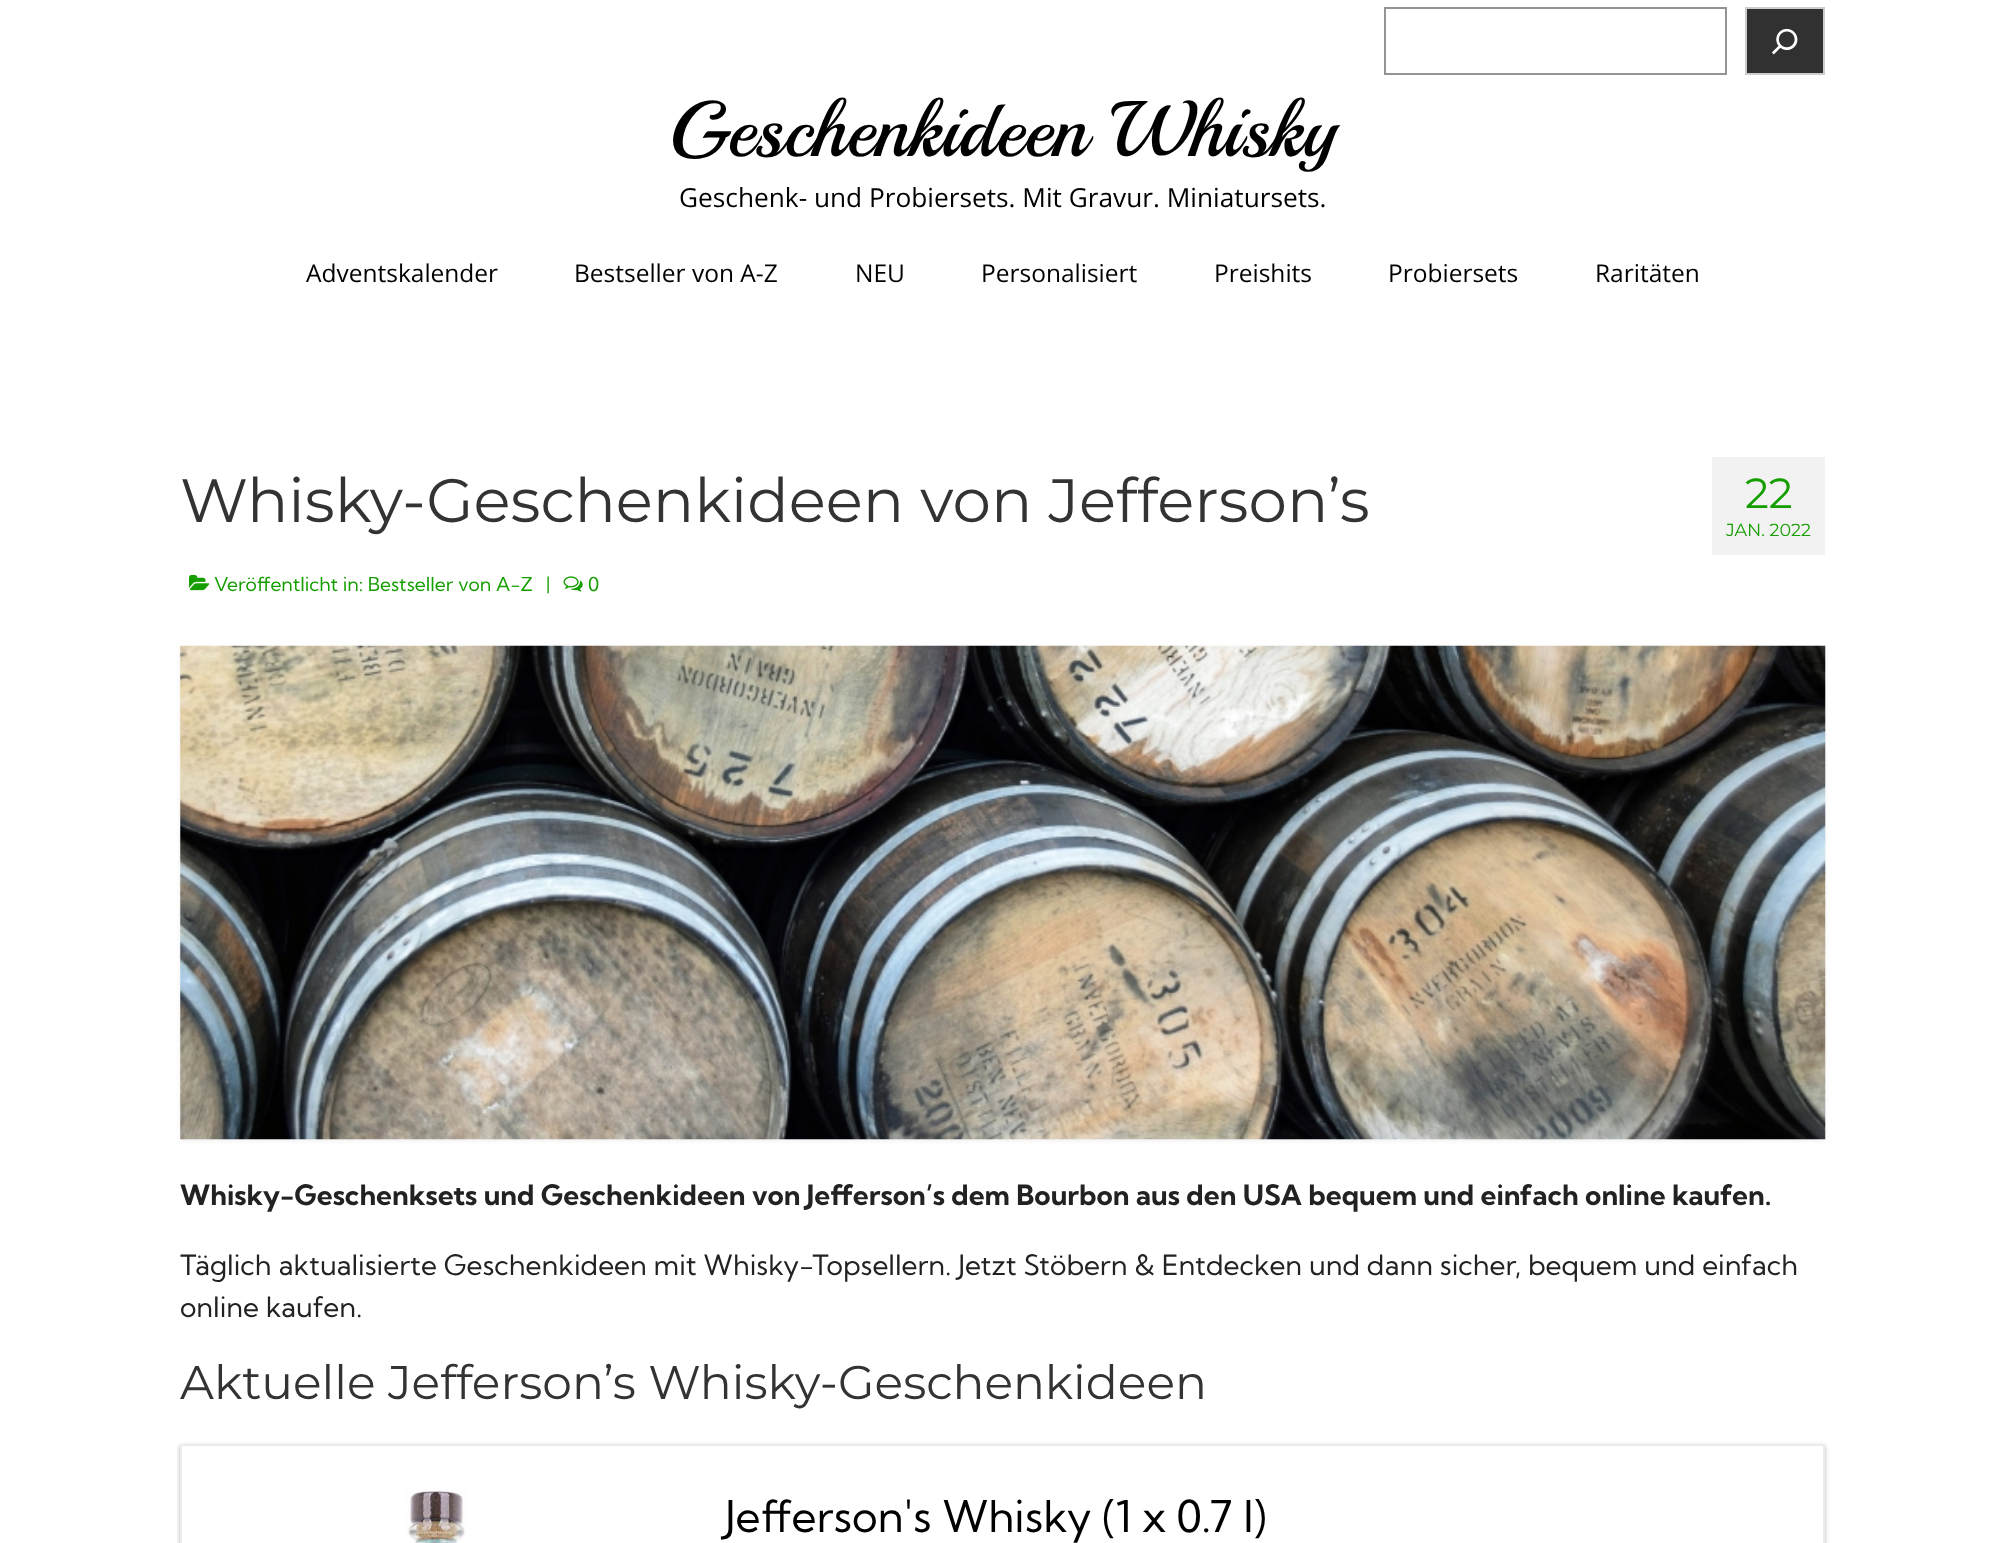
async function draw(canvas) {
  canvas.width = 2004
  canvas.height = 1543
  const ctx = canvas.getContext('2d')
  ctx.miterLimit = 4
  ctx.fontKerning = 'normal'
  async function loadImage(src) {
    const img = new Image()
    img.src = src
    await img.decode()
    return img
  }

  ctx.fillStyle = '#fff'
  ctx.fillRect(0, 0, 2004, 1543)
  ctx.strokeStyle = '#949494'
  ctx.lineWidth = 2
  ctx.strokeRect(1385, 8, 341, 66)
  ctx.fillStyle = '#313131'
  ctx.beginPath()
  ctx.rect(1746, 8, 78, 66)
  ctx.fill()
  ctx.strokeStyle = '#ccc'
  ctx.stroke()
  ctx.drawImage(await loadImage('image0.png'), 1772, 28, 26, 27)
  ctx.font = '78.75px Playball'
  ctx.fillStyle = '#000'
  ctx.fillText('Geschenkideen Whisky', 669, 156)
  ctx.font = '26.25px Open Sans'
  ctx.fillText('Geschenk- und Probiersets. Mit Gravur. Miniatursets.', 679, 207)
  ctx.font = '24.5px Open Sans'
  ctx.fillText('Adventskalender', 306, 282)
  ctx.fillText('Bestseller von A-Z', 574, 282)
  ctx.fillText('NEU', 855, 282)
  ctx.fillText('Personalisiert', 981, 282)
  ctx.fillText('Preishits', 1214, 282)
  ctx.fillText('Probiersets', 1388, 282)
  ctx.fillText('Raritäten', 1595, 282)
  ctx.font = '100 61.25px Montserrat'
  ctx.fillStyle = '#333'
  ctx.fillText('Whisky-Geschenkideen von Jefferson’s', 180, 522)
  ctx.drawImage(await loadImage('image1.png'), 189, 575, 21, 16)
  ctx.font = '19.25px Kumbh Sans'
  ctx.fillStyle = '#149e00'
  ctx.fillText('Veröffentlicht in: Bestseller von A-Z', 214, 591)
  ctx.fillText('|', 546, 591)
  ctx.drawImage(await loadImage('image2.png'), 563, 576, 20, 16)
  ctx.fillText('0', 588, 591)
  ctx.fillStyle = '#f2f2f2'
  ctx.fillRect(1712, 457, 113, 98)
  ctx.font = '100 42px Montserrat'
  ctx.fillStyle = '#149e00'
  ctx.fillText('22', 1745, 508)
  ctx.font = '100 17.5px Montserrat'
  ctx.fillText('JAN. 2022', 1726, 536)
  ctx.fillStyle = '#0000000f'
  ctx.filter = 'blur(2.5px)'
  ctx.beginPath()
  ctx.rect(180, 648, 1645, 493)
  ctx.fill()
  ctx.filter = 'none'
  ctx.drawImage(await loadImage('image3.png'), 180, 645, 1646, 495)
  ctx.font = 'bold 28px Kumbh Sans'
  ctx.fillStyle = '#222'
  ctx.fillText('Whisky-Geschenksets und Geschenkideen von Jefferson’s dem Bourbon aus den USA bequem und einfach online kaufen.', 180, 1205)
  ctx.font = '28px Kumbh Sans'
  ctx.fillText('Täglich aktualisierte Geschenkideen mit Whisky-Topsellern. Jetzt Stöbern & Entdecken und dann sicher, bequem und einfach', 180, 1275)
  ctx.fillText('online kaufen.', 180, 1317)
  ctx.font = '100 47.25px Montserrat'
  ctx.fillStyle = '#333'
  ctx.fillText('Aktuelle Jefferson’s Whisky-Geschenkideen', 180, 1399)
  ctx.fillStyle = '#0000004d'
  ctx.filter = 'blur(2px)'
  ctx.beginPath()
  ctx.rect(180, 1446, 1645, 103)
  ctx.fill()
  ctx.filter = 'none'
  ctx.fillStyle = '#fff'
  ctx.beginPath()
  ctx.rect(181, 1445, 1643, 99)
  ctx.fill()
  ctx.strokeStyle = '#ececec'
  ctx.stroke()
  ctx.drawImage(await loadImage('image4.png'), 406, 1490, 61, 53)
  ctx.font = '43.75px Kumbh Sans'
  ctx.fillStyle = '#000'
  ctx.fillText('Jefferson\'s Whisky (1 x 0.7 l)', 725, 1532)
}

draw(document.querySelector('canvas'))
